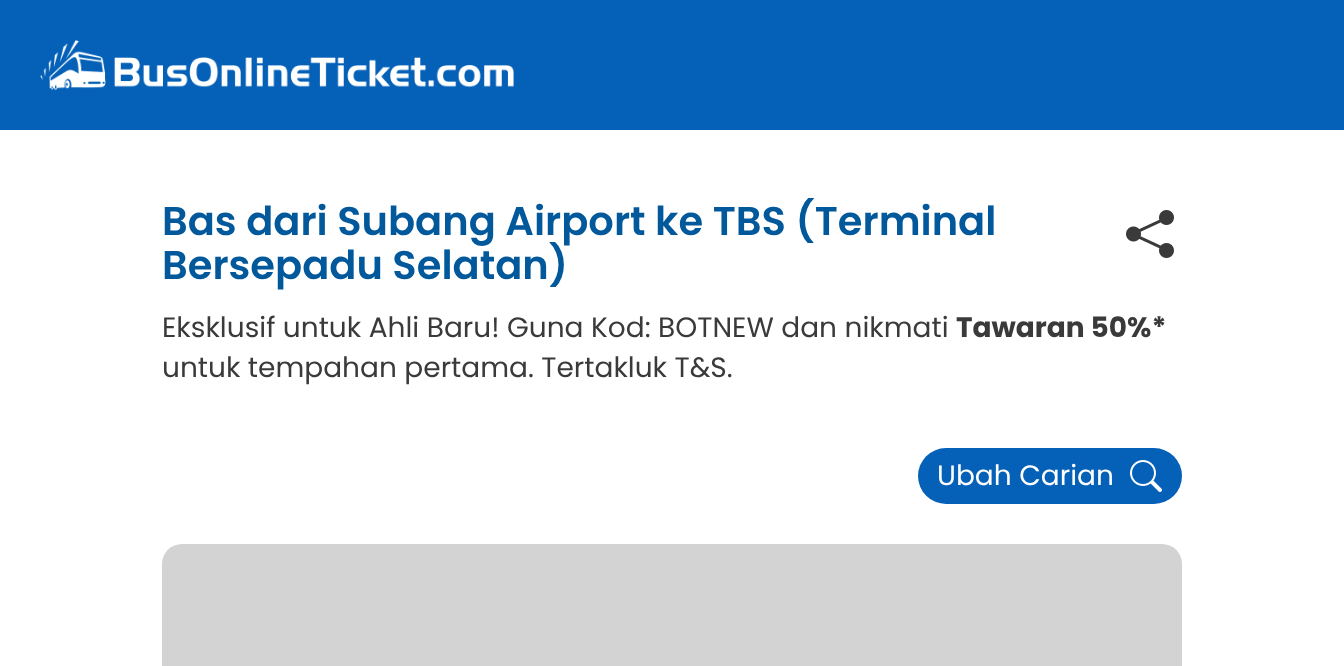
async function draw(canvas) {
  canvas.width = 1344
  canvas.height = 666
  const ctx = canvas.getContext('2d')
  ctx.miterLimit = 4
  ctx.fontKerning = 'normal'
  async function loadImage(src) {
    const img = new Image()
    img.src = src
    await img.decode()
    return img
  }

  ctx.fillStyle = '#fff'
  ctx.fillRect(0, 0, 1344, 666)
  ctx.fillStyle = '#0561b8'
  ctx.fillRect(0, 0, 1344, 130)
  ctx.drawImage(await loadImage('image0.png'), 40, 40, 474, 50)
  ctx.font = '600 40px Poppins'
  ctx.fillStyle = '#01589b'
  ctx.fillText('Bas dari Subang Airport ke TBS (Terminal', 162, 235)
  ctx.fillText('Bersepadu Selatan)', 162, 279)
  ctx.drawImage(await loadImage('image1.png'), 1126, 210, 48, 48)
  ctx.font = '28px Poppins'
  ctx.fillStyle = '#3b3a3a'
  ctx.fillText('Eksklusif untuk Ahli Baru! Guna Kod: BOTNEW dan nikmati', 162, 337)
  ctx.font = 'bold 28px Poppins'
  ctx.fillText('Tawaran 50%*', 956, 337)
  ctx.font = '28px Poppins'
  ctx.fillText('untuk tempahan pertama. Tertakluk T&S.', 162, 377)
  ctx.fillStyle = '#0561b8'
  ctx.beginPath()
  ctx.roundRect(918, 448, 264, 56, 28)
  ctx.fill()
  ctx.fillStyle = '#fff'
  ctx.fillText('Ubah Carian', 937, 485)
  ctx.drawImage(await loadImage('image2.png'), 1130, 460, 32, 32)
  ctx.fillStyle = '#d3d3d3'
  ctx.beginPath()
  ctx.roundRect(162, 544, 1020, 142, 20)
  ctx.fill()
}

draw(document.querySelector('canvas'))
